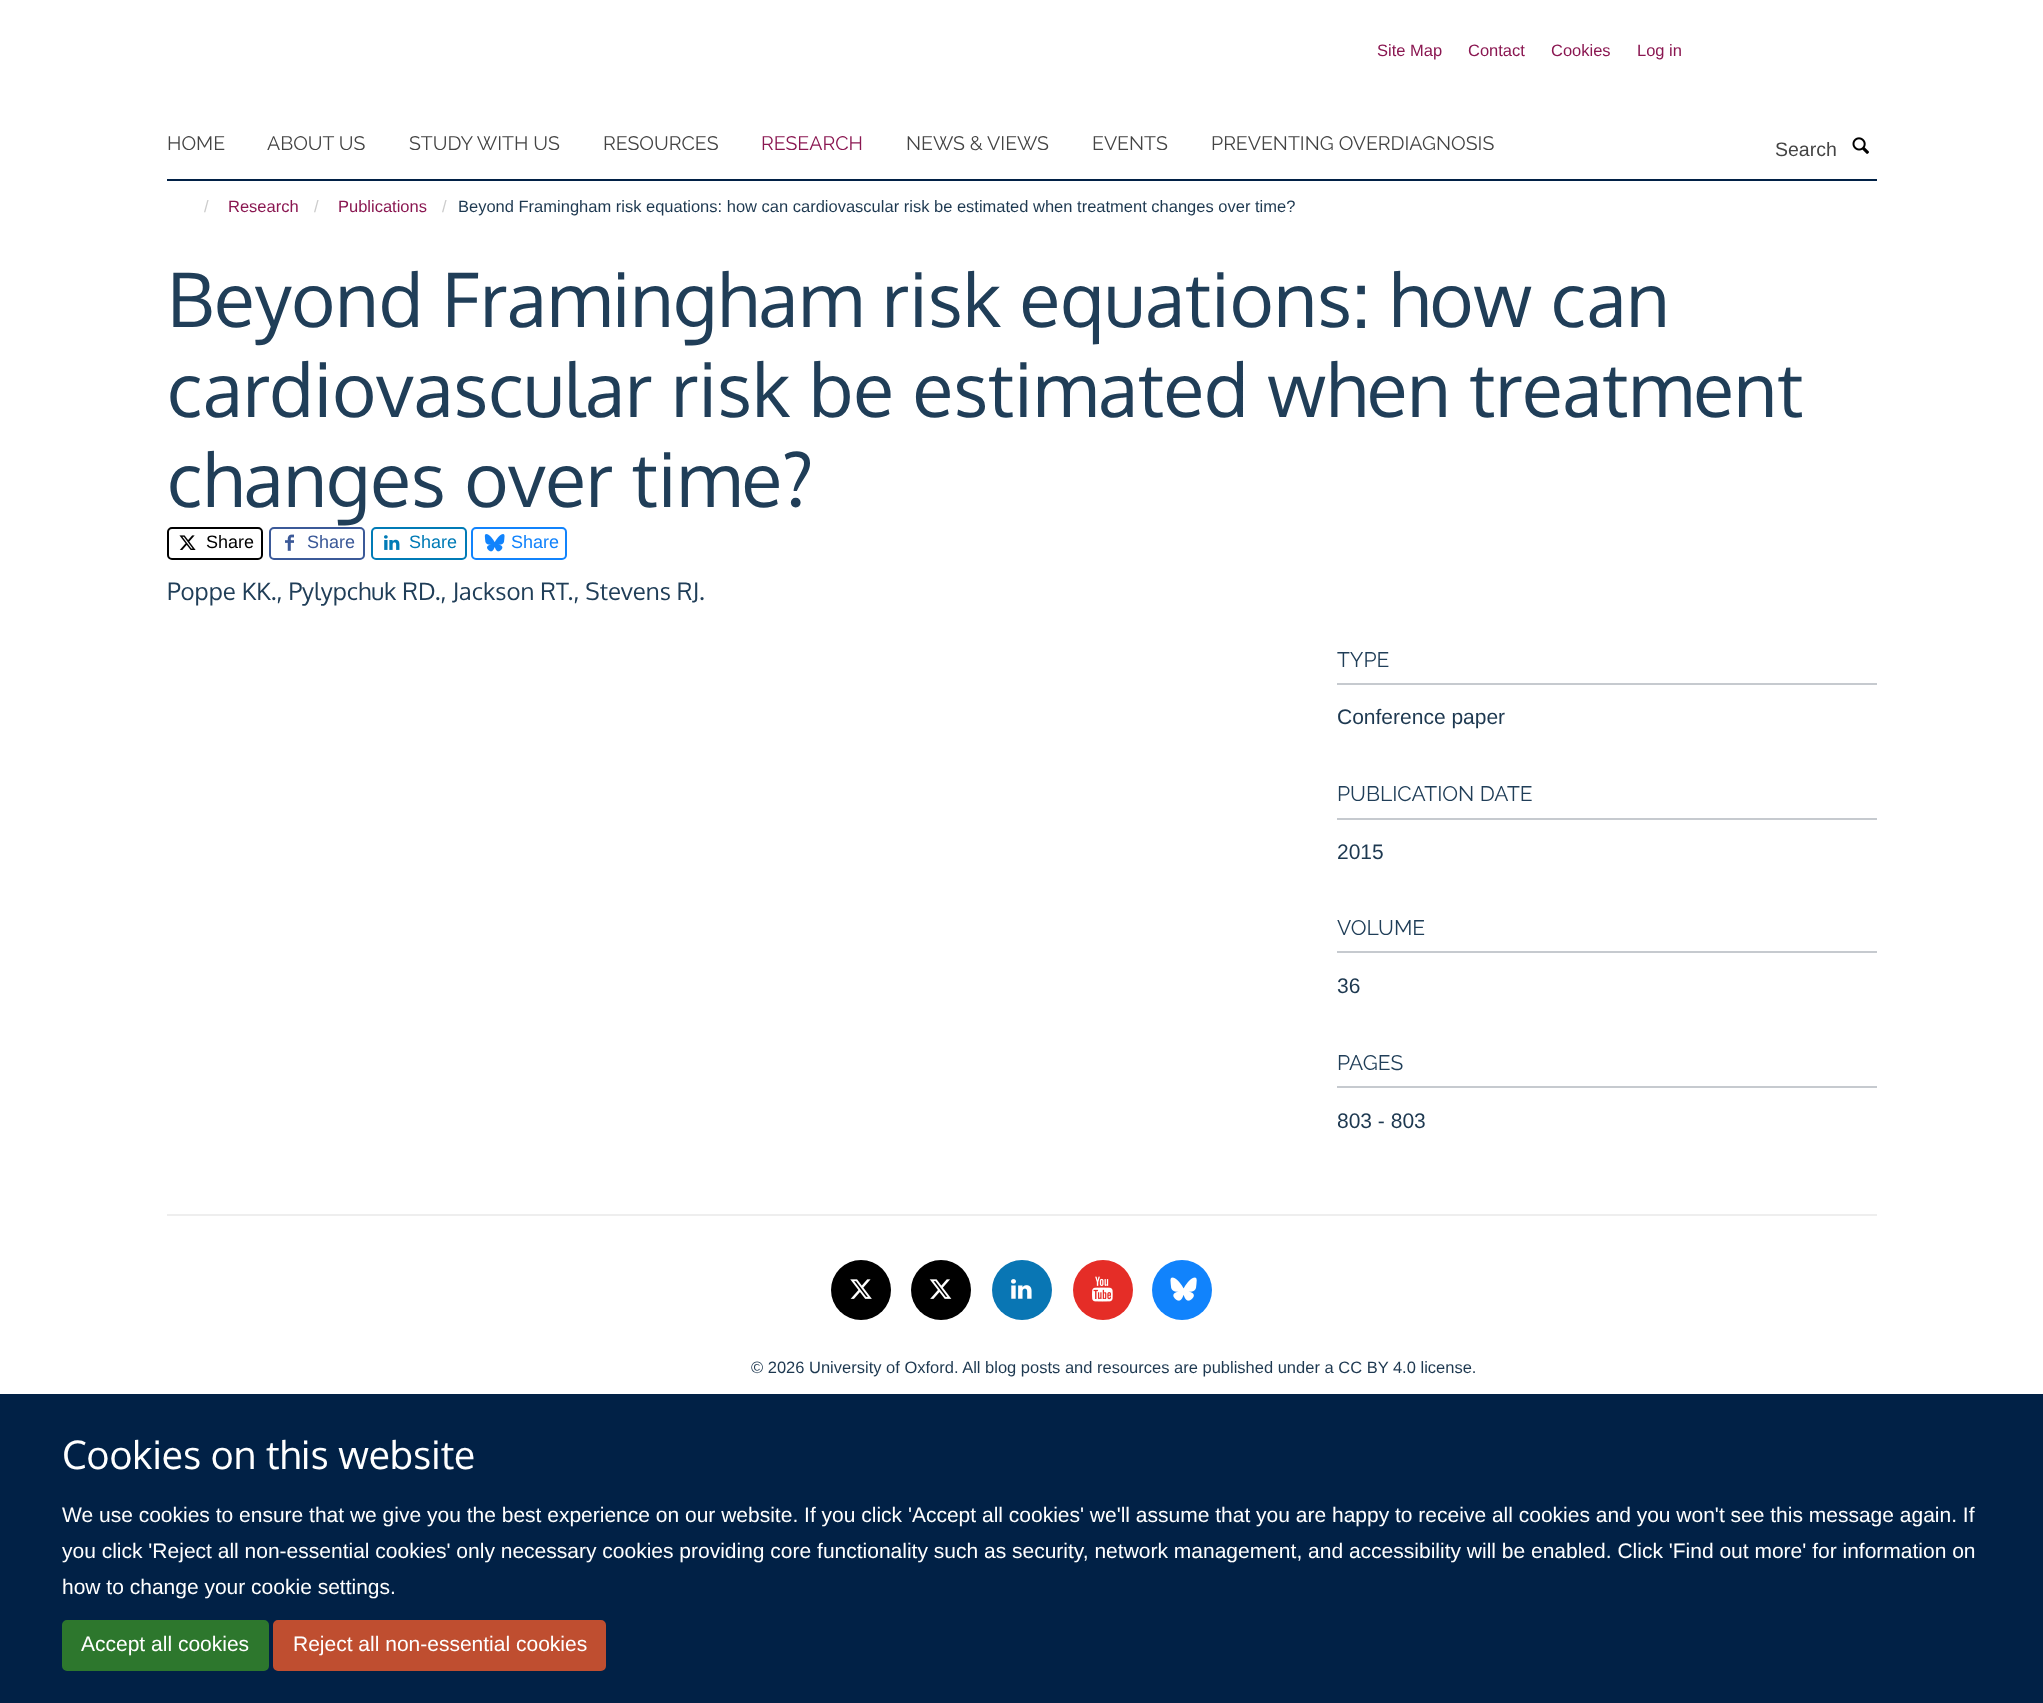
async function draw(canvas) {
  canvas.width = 2043
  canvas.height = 1703
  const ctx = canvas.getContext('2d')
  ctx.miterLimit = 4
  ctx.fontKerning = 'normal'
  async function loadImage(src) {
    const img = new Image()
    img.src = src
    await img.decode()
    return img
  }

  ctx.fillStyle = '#fff'
  ctx.fillRect(0, 0, 2043, 1703)
  ctx.font = '16.5px Liberation Sans'
  ctx.fillStyle = '#8a1751'
  ctx.fillText('Site Map', 1377, 56)
  ctx.fillText('Contact', 1468, 56)
  ctx.fillText('Cookies', 1551, 56)
  ctx.fillText('Log in', 1637, 56)
  ctx.fillStyle = '#012146'
  ctx.fillRect(167, 179, 1710, 2)
  ctx.font = '100 19.5px Raleway'
  ctx.fillStyle = '#444'
  ctx.fillText('HOME', 167, 150)
  ctx.fillText('ABOUT US', 267, 150)
  ctx.fillText('STUDY WITH US', 409, 150)
  ctx.fillText('RESOURCES', 603, 150)
  ctx.fillStyle = '#8a1751'
  ctx.fillText('RESEARCH', 761, 150)
  ctx.fillStyle = '#444'
  ctx.fillText('NEWS & VIEWS', 906, 150)
  ctx.fillText('EVENTS', 1092, 150)
  ctx.fillText('PREVENTING OVERDIAGNOSIS', 1211, 150)
  ctx.font = '19.5px Liberation Sans'
  ctx.fillText('Search', 1775, 156)
  ctx.drawImage(await loadImage('image0.png'), 1852, 137, 17, 17)
  ctx.font = '16.5px Liberation Sans'
  ctx.fillStyle = '#ccc'
  ctx.fillText('/', 204, 212)
  ctx.fillStyle = '#8a1751'
  ctx.fillText('Research', 228, 212)
  ctx.fillStyle = '#ccc'
  ctx.fillText('/', 314, 212)
  ctx.fillStyle = '#8a1751'
  ctx.fillText('Publications', 338, 212)
  ctx.fillStyle = '#ccc'
  ctx.fillText('/', 442, 212)
  ctx.fillStyle = '#1d3850'
  ctx.fillText('Beyond Framingham risk equations: how can cardiovascular risk be estimated when treatment changes over time?', 458, 212)
  ctx.font = '75px Oxygen'
  ctx.fillStyle = '#203e58'
  ctx.fillText('Beyond Framingham risk equations: how can', 167, 327)
  ctx.fillText('cardiovascular risk be estimated when treatment', 167, 417)
  ctx.fillText('changes over time?', 167, 507)
  ctx.beginPath()
  ctx.roundRect(168, 528, 94, 31, 4)
  ctx.strokeStyle = '#000'
  ctx.lineWidth = 2
  ctx.stroke()
  ctx.drawImage(await loadImage('image1.png'), 179, 535, 17, 15)
  ctx.font = '18px Liberation Sans'
  ctx.fillStyle = '#000'
  ctx.fillText('Share', 206, 548)
  ctx.beginPath()
  ctx.roundRect(270, 528, 94, 31, 4)
  ctx.strokeStyle = '#3b5998'
  ctx.stroke()
  ctx.drawImage(await loadImage('image2.png'), 285, 534, 9, 17)
  ctx.fillStyle = '#3b5998'
  ctx.fillText('Share', 307, 548)
  ctx.beginPath()
  ctx.roundRect(372, 528, 94, 31, 4)
  ctx.strokeStyle = '#007bb6'
  ctx.stroke()
  ctx.drawImage(await loadImage('image3.png'), 384, 535, 16, 15)
  ctx.fillStyle = '#007bb6'
  ctx.fillText('Share', 409, 548)
  ctx.beginPath()
  ctx.roundRect(472, 528, 94, 31, 4)
  ctx.strokeStyle = '#1183fc'
  ctx.stroke()
  ctx.drawImage(await loadImage('image4.png'), 484, 534, 21, 18)
  ctx.fillStyle = '#1183fc'
  ctx.fillText('Share', 511, 548)
  ctx.font = '24px Oxygen'
  ctx.fillStyle = '#203e58'
  ctx.fillText('Poppe KK., Pylypchuk RD., Jackson RT., Stevens RJ.', 167, 600)
  ctx.fillStyle = '#c6cacf'
  ctx.fillRect(1337, 683, 540, 2)
  ctx.font = '100 21px Raleway'
  ctx.fillStyle = '#203e58'
  ctx.fillText('TYPE', 1337, 667)
  ctx.font = '21px Liberation Sans'
  ctx.fillStyle = '#1d3850'
  ctx.fillText('Conference paper', 1337, 724)
  ctx.fillStyle = '#c6cacf'
  ctx.fillRect(1337, 818, 540, 2)
  ctx.font = '100 21px Raleway'
  ctx.fillStyle = '#203e58'
  ctx.fillText('PUBLICATION DATE', 1337, 801)
  ctx.font = '21px Liberation Sans'
  ctx.fillStyle = '#1d3850'
  ctx.fillText('2015', 1337, 859)
  ctx.fillStyle = '#c6cacf'
  ctx.fillRect(1337, 951, 540, 2)
  ctx.font = '100 21px Raleway'
  ctx.fillStyle = '#203e58'
  ctx.fillText('VOLUME', 1337, 935)
  ctx.font = '21px Liberation Sans'
  ctx.fillStyle = '#1d3850'
  ctx.fillText('36', 1337, 993)
  ctx.fillStyle = '#c6cacf'
  ctx.fillRect(1337, 1086, 540, 2)
  ctx.font = '100 21px Raleway'
  ctx.fillStyle = '#203e58'
  ctx.fillText('PAGES', 1337, 1070)
  ctx.font = '21px Liberation Sans'
  ctx.fillStyle = '#1d3850'
  ctx.fillText('803 - 803', 1337, 1128)
  ctx.fillStyle = '#eee'
  ctx.fillRect(167, 1214, 1710, 2)
  ctx.fillStyle = '#000'
  ctx.beginPath()
  ctx.arc(861, 1290, 30, 0, 2 * Math.PI)
  ctx.fill()
  ctx.drawImage(await loadImage('image5.png'), 850, 1279, 22, 20)
  ctx.beginPath()
  ctx.arc(941, 1290, 30, 0, 2 * Math.PI)
  ctx.fill()
  ctx.drawImage(await loadImage('image6.png'), 929, 1279, 23, 20)
  ctx.fillStyle = '#0976b4'
  ctx.beginPath()
  ctx.arc(1022, 1290, 30, 0, 2 * Math.PI)
  ctx.fill()
  ctx.drawImage(await loadImage('image7.png'), 1011, 1279, 21, 20)
  ctx.fillStyle = '#e52d27'
  ctx.beginPath()
  ctx.arc(1103, 1290, 30, 0, 2 * Math.PI)
  ctx.fill()
  ctx.drawImage(await loadImage('image8.png'), 1092, 1276, 21, 26)
  ctx.fillStyle = '#1183fc'
  ctx.beginPath()
  ctx.arc(1182, 1290, 30, 0, 2 * Math.PI)
  ctx.fill()
  ctx.drawImage(await loadImage('image9.png'), 1170, 1277, 27, 24)
  ctx.font = '16.5px Liberation Sans'
  ctx.fillStyle = '#1d3850'
  ctx.fillText('© 2026 University of Oxford. All blog posts and resources are published under a CC BY 4.0 license.', 751, 1373)
  ctx.fillStyle = '#012146'
  ctx.fillRect(0, 1394, 2043, 309)
  ctx.font = '39px Oxygen'
  ctx.fillStyle = '#fff'
  ctx.fillText('Cookies on this website', 62, 1469)
  ctx.font = '21px Liberation Sans'
  ctx.fillText('We use cookies to ensure that we give you the best experience on our website. If you click \'Accept all cookies\' we\'ll assume that you are happy to receive all cookies and you won\'t see this message again. If', 62, 1522)
  ctx.fillText('you click \'Reject all non-essential cookies\' only necessary cookies providing core functionality such as security, network management, and accessibility will be enabled. Click \'Find out more\' for information on', 62, 1558)
  ctx.fillText('how to change your cookie settings.', 62, 1594)
  ctx.fillStyle = '#2d772d'
  ctx.beginPath()
  ctx.roundRect(63, 1621, 205, 49, 4)
  ctx.fill()
  ctx.strokeStyle = '#2d772d'
  ctx.stroke()
  ctx.fillStyle = '#fff'
  ctx.fillText('Accept all cookies', 81, 1651)
  ctx.fillStyle = '#bf4e30'
  ctx.beginPath()
  ctx.roundRect(274, 1621, 331, 49, 4)
  ctx.fill()
  ctx.strokeStyle = '#bf4e30'
  ctx.stroke()
  ctx.fillStyle = '#fff'
  ctx.fillText('Reject all non-essential cookies', 293, 1651)
}

draw(document.querySelector('canvas'))
